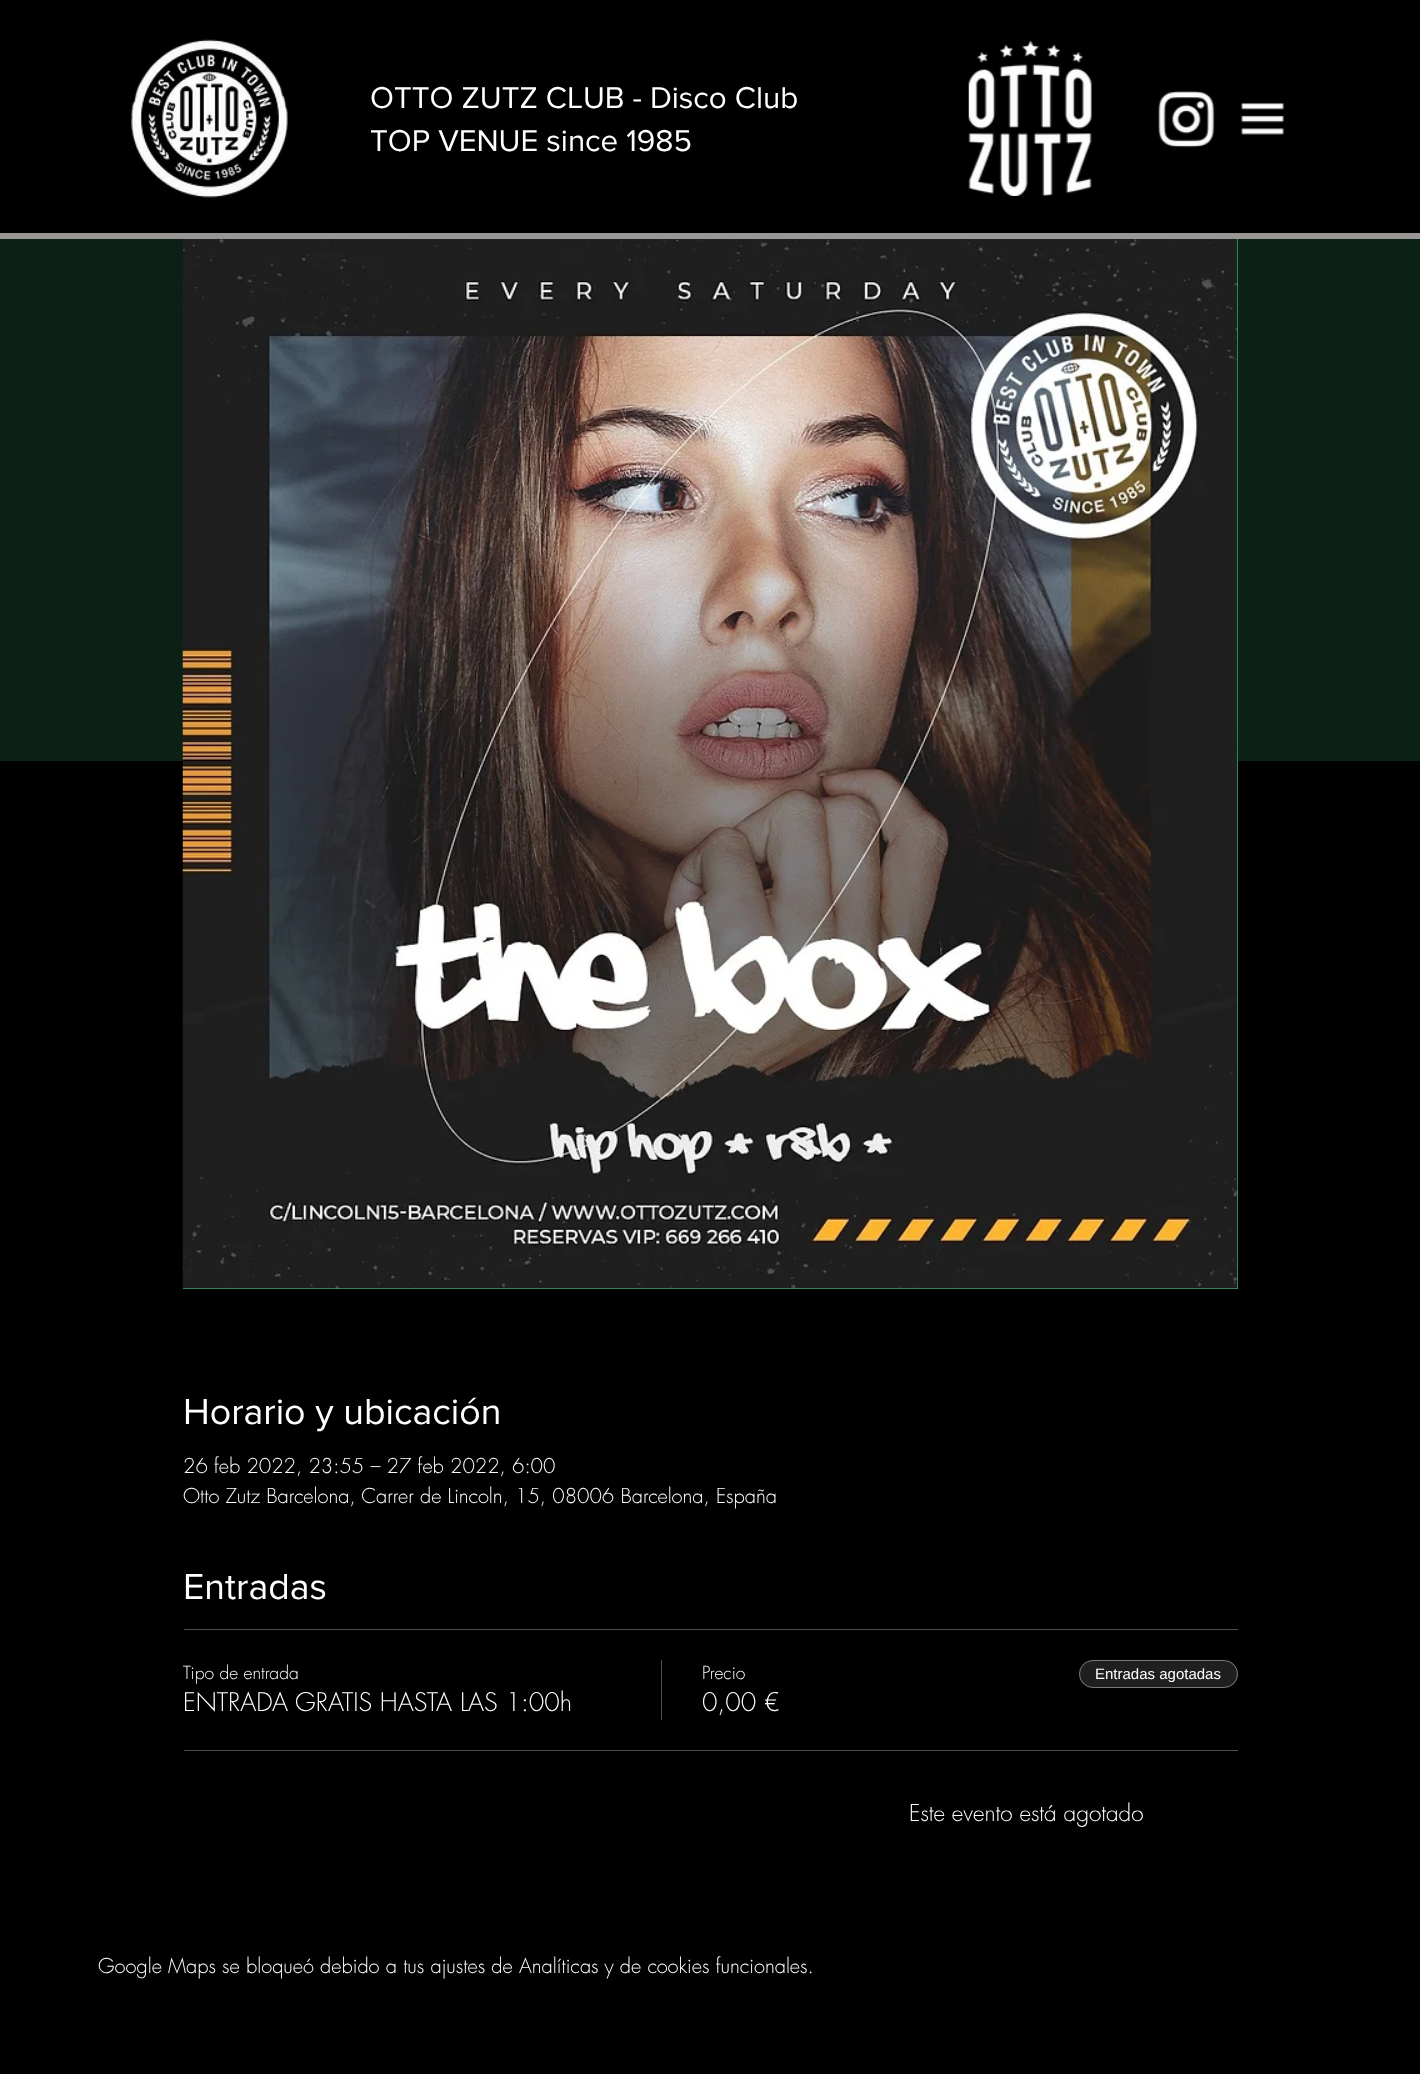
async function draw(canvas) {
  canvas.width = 1420
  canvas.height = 2074
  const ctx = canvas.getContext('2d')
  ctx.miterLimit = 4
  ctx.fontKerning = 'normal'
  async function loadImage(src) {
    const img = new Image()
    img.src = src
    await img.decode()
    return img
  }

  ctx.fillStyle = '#000'
  ctx.fillRect(0, 0, 1420, 2074)
  ctx.drawImage(await loadImage('image0.png'), 131, 39, 157, 159)
  ctx.font = '31.25px "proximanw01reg"'
  ctx.fillStyle = '#fff'
  ctx.fillText('OTTO ZUTZ CLUB - Disco Club', 370, 108)
  ctx.fillText('TOP VENUE since 1985', 370, 151)
  ctx.drawImage(await loadImage('image1.png'), 968, 41, 124, 155)
  ctx.drawImage(await loadImage('image2.png'), 1158, 91, 57, 57)
  ctx.drawImage(await loadImage('image3.png'), 1241, 102, 43, 33)
  ctx.fillStyle = '#999696'
  ctx.fillRect(0, 233, 1420, 6)
  ctx.fillStyle = '#0b2116'
  ctx.fillRect(0, 239, 1420, 522)
  ctx.fillStyle = '#35a770'
  ctx.fillRect(183, 239, 1055, 1050)
  ctx.drawImage(await loadImage('image4.png'), 182, 239, 1056, 1050)
  ctx.font = '37.5px "proximanw01reg"'
  ctx.fillStyle = '#fff'
  ctx.fillText('Horario y ubicación', 183, 1424)
  ctx.font = '300 20px futura'
  ctx.fillText('26 feb 2022, 23:55 – 27 feb 2022, 6:00', 183, 1473)
  ctx.fillText('Otto Zutz Barcelona, Carrer de Lincoln, 15, 08006 Barcelona, España', 183, 1503)
  ctx.font = '37.5px "proximanw01reg"'
  ctx.fillText('Entradas', 183, 1599)
  ctx.fillStyle = '#4d4d4d'
  ctx.fillRect(184, 1629, 1054, 1)
  ctx.fillRect(184, 1750, 1054, 1)
  ctx.font = '300 17.5px futura'
  ctx.fillStyle = '#fff'
  ctx.fillText('Tipo de entrada', 183, 1679)
  ctx.font = '300 25px futura'
  ctx.fillText('ENTRADA GRATIS HASTA LAS 1:00h', 183, 1711)
  ctx.fillStyle = '#4d4d4d'
  ctx.fillRect(661, 1660, 1, 60)
  ctx.font = '300 17.5px futura'
  ctx.fillStyle = '#fff'
  ctx.fillText('Precio', 702, 1679)
  ctx.font = '300 25px futura'
  ctx.fillText('0,00 €', 702, 1711)
  ctx.fillStyle = '#1f1f1f'
  ctx.beginPath()
  ctx.roundRect(1079, 1660, 159, 28, 14)
  ctx.fill()
  ctx.beginPath()
  ctx.roundRect(1079.5, 1660.5, 158, 27, 13.5)
  ctx.strokeStyle = '#ffffff66'
  ctx.stroke()
  ctx.font = '15px Liberation Sans'
  ctx.fillStyle = '#fff'
  ctx.fillText('Entradas agotadas', 1095, 1679)
  ctx.font = '300 22.5px futura'
  ctx.fillText('Este evento está agotado', 909, 1821)
  ctx.font = '300 20px futura'
  ctx.fillText('Google Maps se bloqueó debido a tus ajustes de Analíticas y de cookies funcionales.', 98, 1973)
}

draw(document.querySelector('canvas'))
